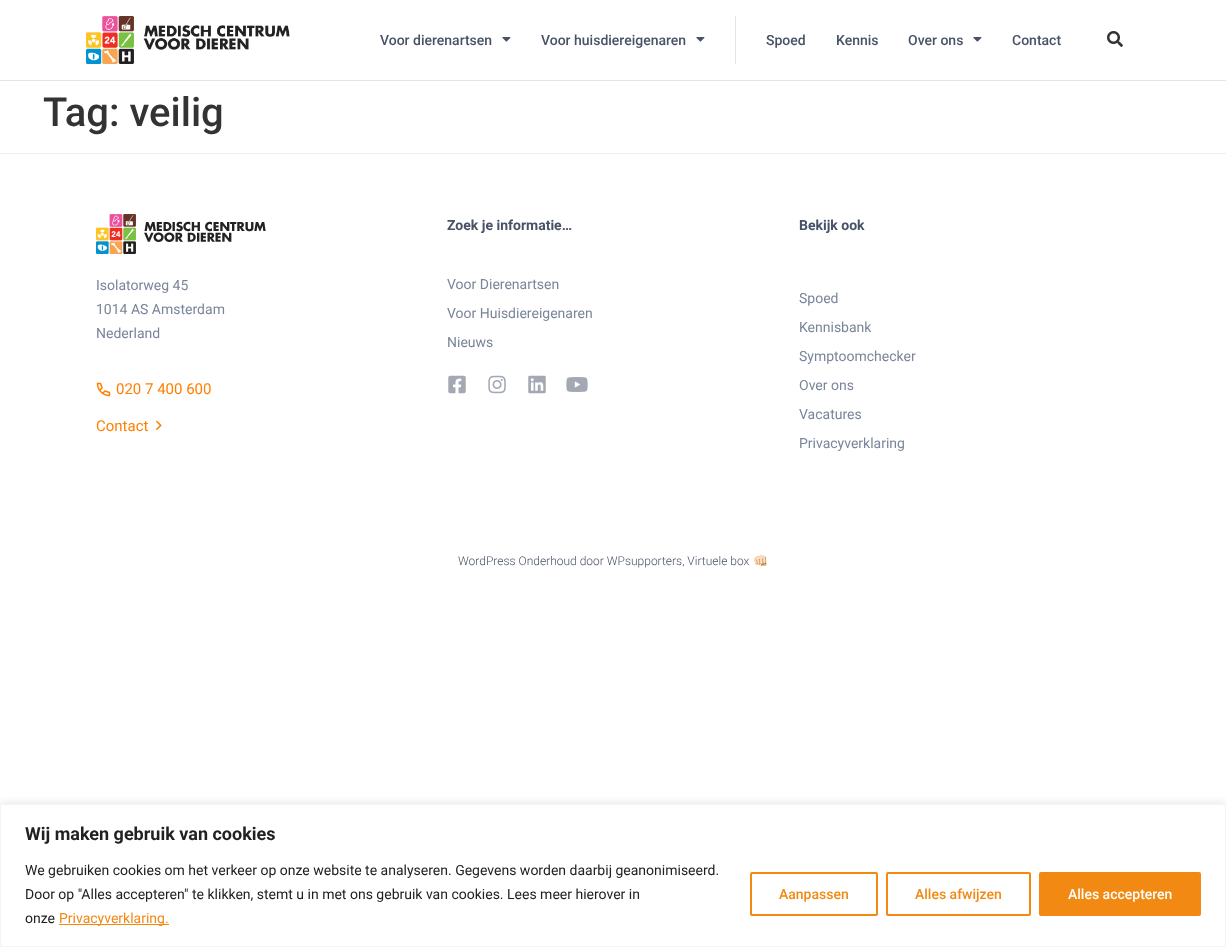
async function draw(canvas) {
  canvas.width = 1226
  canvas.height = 947
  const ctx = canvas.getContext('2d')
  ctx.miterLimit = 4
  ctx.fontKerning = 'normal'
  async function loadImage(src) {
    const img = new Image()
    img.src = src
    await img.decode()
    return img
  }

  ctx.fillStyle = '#fff'
  ctx.fillRect(0, 0, 1226, 947)
  ctx.fillStyle = '#e1e4eb'
  ctx.fillRect(0, 80, 1226, 1)
  ctx.drawImage(await loadImage('image0.png'), 86, 16, 204, 48)
  ctx.font = '500 14px Roboto'
  ctx.fillStyle = '#475266'
  ctx.fillText('Voor dierenartsen', 380, 45)
  ctx.drawImage(await loadImage('image1.png'), 502, 37, 9, 5)
  ctx.fillText('Voor huisdiereigenaren', 541, 45)
  ctx.drawImage(await loadImage('image1.png'), 696, 37, 9, 5)
  ctx.fillStyle = '#e1e4eb'
  ctx.fillRect(735, 16, 1, 48)
  ctx.fillStyle = '#475266'
  ctx.fillText('Spoed', 766, 45)
  ctx.fillText('Kennis', 836, 45)
  ctx.fillText('Over ons', 908, 45)
  ctx.drawImage(await loadImage('image1.png'), 973, 37, 9, 5)
  ctx.fillText('Contact', 1012, 45)
  ctx.drawImage(await loadImage('image2.png'), 1107, 31, 16, 16)
  ctx.font = '500 40px Roboto'
  ctx.fillStyle = '#333'
  ctx.fillText('Tag: veilig', 43, 126)
  ctx.fillStyle = '#edeef0'
  ctx.fillRect(0, 153, 1226, 1)
  ctx.drawImage(await loadImage('image3.png'), 96, 214, 170, 40)
  ctx.font = '14px Roboto'
  ctx.fillStyle = '#7a8599'
  ctx.fillText('Isolatorweg 45', 96, 290)
  ctx.fillText('1014 AS Amsterdam', 96, 314)
  ctx.fillText('Nederland', 96, 338)
  ctx.drawImage(await loadImage('image4.png'), 96, 382, 15, 15)
  ctx.font = '15px Roboto'
  ctx.fillStyle = '#ff7f00'
  ctx.fillText('020 7 400 600', 116, 394)
  ctx.fillText('Contact', 96, 431)
  ctx.drawImage(await loadImage('image5.png'), 156, 420, 6, 10)
  ctx.font = 'bold 14px Roboto'
  ctx.fillStyle = '#475266'
  ctx.fillText('Zoek je informatie…', 447, 230)
  ctx.font = '14px Roboto'
  ctx.fillStyle = '#7a8599'
  ctx.fillText('Voor Dierenartsen', 447, 289)
  ctx.fillText('Voor Huisdiereigenaren', 447, 318)
  ctx.fillText('Nieuws', 447, 347)
  ctx.drawImage(await loadImage('image6.png'), 448, 375, 18, 19)
  ctx.drawImage(await loadImage('image7.png'), 488, 375, 18, 19)
  ctx.drawImage(await loadImage('image8.png'), 528, 375, 18, 19)
  ctx.drawImage(await loadImage('image9.png'), 566, 377, 22, 15)
  ctx.font = 'bold 14px Roboto'
  ctx.fillStyle = '#475266'
  ctx.fillText('Bekijk ook', 799, 230)
  ctx.font = '14px Roboto'
  ctx.fillStyle = '#7a8599'
  ctx.fillText('Spoed', 799, 303)
  ctx.fillText('Kennisbank', 799, 332)
  ctx.fillText('Symptoomchecker', 799, 361)
  ctx.fillText('Over ons', 799, 390)
  ctx.fillText('Vacatures', 799, 419)
  ctx.fillText('Privacyverklaring', 799, 448)
  ctx.font = '300 12px Roboto'
  ctx.fillStyle = '#475266'
  ctx.fillText('WordPress Onderhoud door WPsupporters, Virtuele box', 458, 565)
  ctx.font = '12px Noto Color Emoji'
  ctx.fillText('👊🏻', 753, 565)
  ctx.save()
  ctx.beginPath()
  ctx.rect(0, 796, 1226, 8)
  ctx.clip()
  ctx.fillStyle = '#acabab4d'
  ctx.filter = 'blur(5px)'
  ctx.beginPath()
  ctx.rect(0, 803, 1226, 143)
  ctx.fill()
  ctx.filter = 'none'
  ctx.restore()
  ctx.strokeStyle = '#f4f4f4'
  ctx.strokeRect(0.5, 804.5, 1225, 142)
  ctx.font = 'bold 18px Roboto'
  ctx.fillStyle = '#212121'
  ctx.fillText('Wij maken gebruik van cookies', 25, 840)
  ctx.font = '14px Roboto'
  ctx.fillText('We gebruiken cookies om het verkeer op onze website te analyseren. Gegevens worden daarbij geanonimiseerd.', 25, 875)
  ctx.fillText('Door op "Alles accepteren" te klikken, stemt u in met ons gebruik van cookies. Lees meer hierover in', 25, 899)
  ctx.fillText('onze', 25, 923)
  ctx.fillStyle = '#f18912'
  ctx.fillRect(59, 924, 110, 1)
  ctx.fillText('Privacyverklaring.', 59, 923)
  ctx.beginPath()
  ctx.roundRect(751, 873, 126, 42, 1)
  ctx.strokeStyle = '#f18912'
  ctx.lineWidth = 2
  ctx.stroke()
  ctx.font = '500 14px Roboto'
  ctx.fillText('Aanpassen', 779, 899)
  ctx.beginPath()
  ctx.roundRect(887, 873, 143, 42, 1)
  ctx.stroke()
  ctx.fillText('Alles afwijzen', 915, 899)
  ctx.beginPath()
  ctx.roundRect(1040, 873, 160, 42, 1)
  ctx.fill()
  ctx.stroke()
  ctx.fillStyle = '#fff'
  ctx.fillText('Alles accepteren', 1068, 899)
}

draw(document.querySelector('canvas'))
